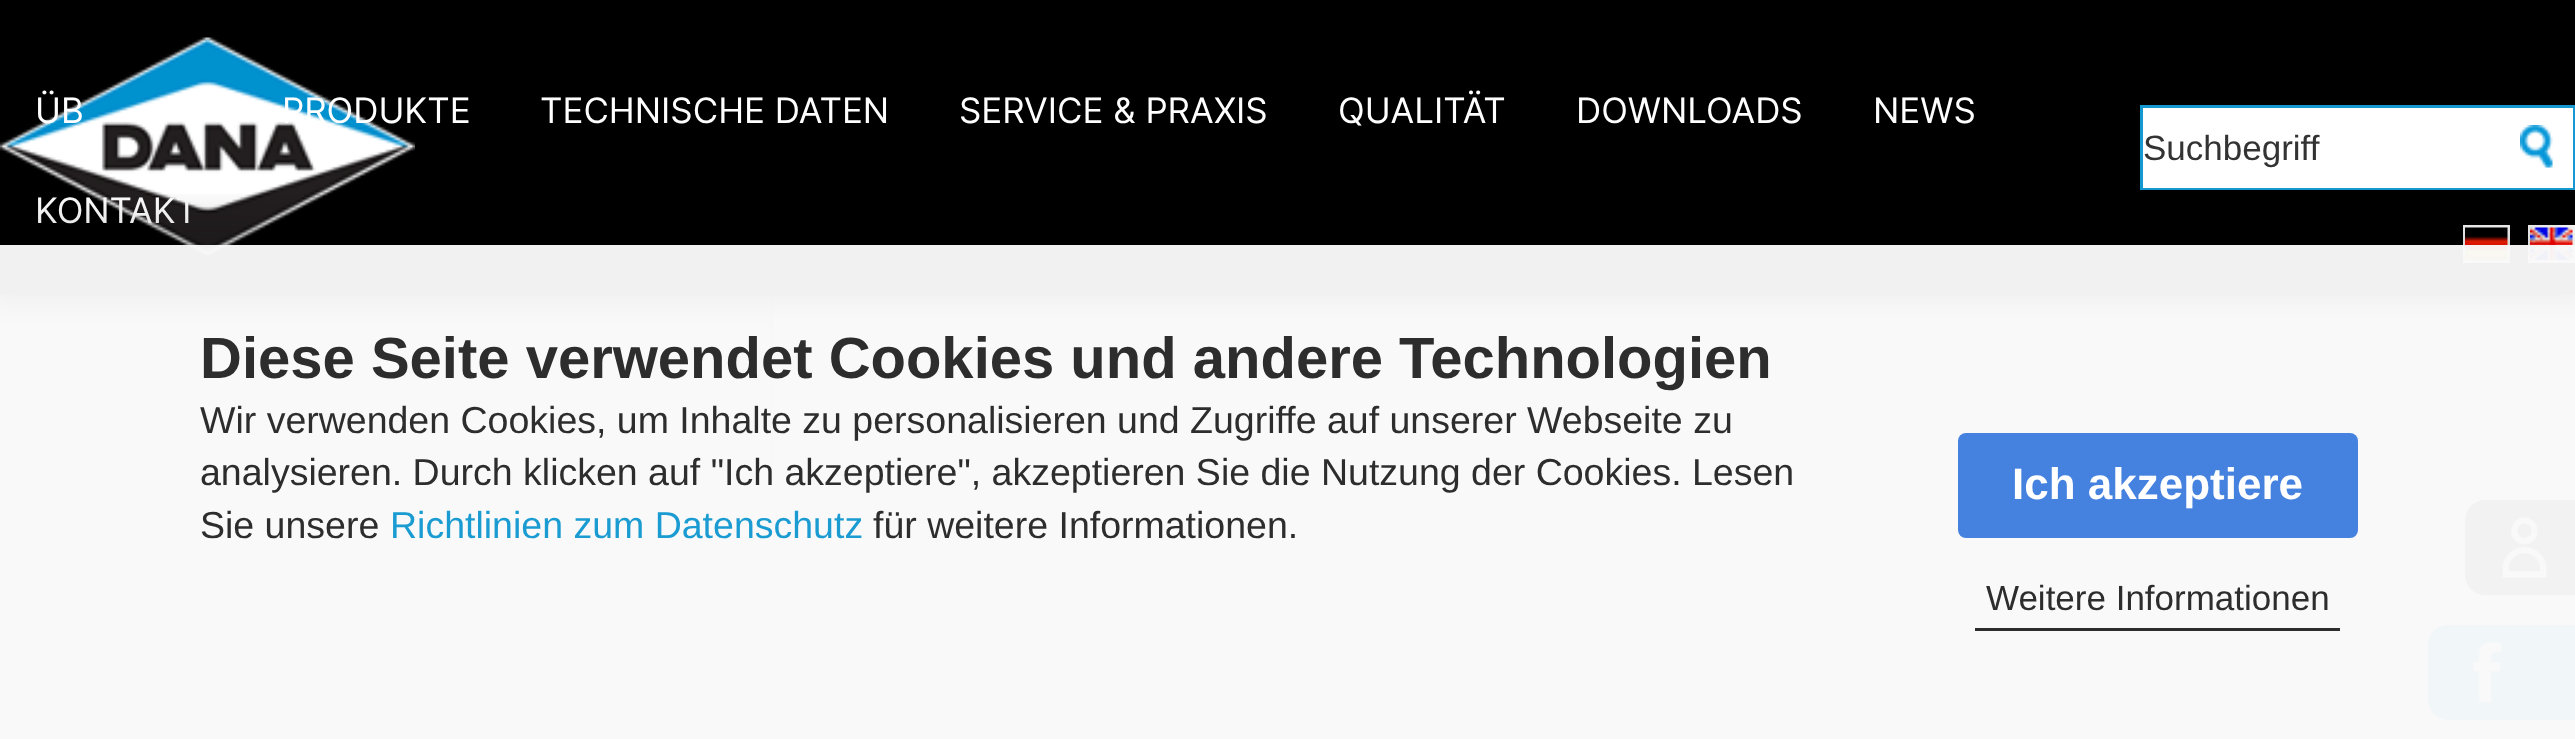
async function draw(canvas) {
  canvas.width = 2575
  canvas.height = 739
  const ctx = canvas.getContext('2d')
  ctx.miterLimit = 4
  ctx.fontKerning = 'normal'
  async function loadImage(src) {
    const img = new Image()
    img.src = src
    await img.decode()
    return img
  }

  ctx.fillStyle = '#fff'
  ctx.fillRect(0, 0, 2575, 739)
  ctx.fillStyle = '#f3f3f3'
  ctx.fillRect(0, 295, 770, 170)
  ctx.fillStyle = '#d0d0d0'
  ctx.fillRect(770, 295, 3, 170)
  ctx.fillStyle = '#000'
  ctx.filter = 'blur(12.5px)'
  ctx.beginPath()
  ctx.rect(-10, -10, 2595, 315)
  ctx.fill()
  ctx.filter = 'none'
  ctx.fillRect(0, 0, 2575, 295)
  ctx.drawImage(await loadImage('image0.png'), 0, 37, 415, 218)
  ctx.font = '35px Inter'
  ctx.fillStyle = '#fff'
  ctx.fillText('ÜB', 35, 123)
  ctx.fillText('PRODUKTE', 282, 123)
  ctx.fillText('TECHNISCHE DATEN', 540, 123)
  ctx.fillText('SERVICE & PRAXIS', 959, 123)
  ctx.fillText('QUALITÄT', 1338, 123)
  ctx.fillText('DOWNLOADS', 1576, 123)
  ctx.fillText('NEWS', 1873, 123)
  ctx.fillText('KONTAKT', 35, 223)
  ctx.strokeStyle = '#1398d0'
  ctx.lineWidth = 3
  ctx.strokeRect(2141.5, 106.5, 432, 82)
  ctx.fillRect(2143, 108, 430, 80)
  ctx.font = '35px Liberation Sans'
  ctx.fillStyle = '#333'
  ctx.fillText('Suchbegriff', 2143, 160)
  ctx.drawImage(await loadImage('image1.png'), 2520, 125, 33, 43)
  ctx.strokeStyle = '#fff'
  ctx.strokeRect(2464.5, 226.5, 44, 35)
  ctx.strokeRect(2529.5, 226.5, 44, 35)
  ctx.drawImage(await loadImage('image2.png'), 2465, 227, 43, 33)
  ctx.drawImage(await loadImage('image3.png'), 2530, 227, 43, 33)
  ctx.fillStyle = '#212121'
  ctx.beginPath()
  ctx.moveTo(2485, 500)
  ctx.lineTo(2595, 500)
  ctx.lineTo(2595, 595)
  ctx.lineTo(2485, 595)
  ctx.bezierCurveTo(2474, 595, 2465, 586, 2465, 575)
  ctx.lineTo(2465, 520)
  ctx.bezierCurveTo(2465, 509, 2474, 500, 2485, 500)
  ctx.closePath()
  ctx.fill()
  ctx.drawImage(await loadImage('image4.png'), 2502, 517, 45, 61)
  ctx.fillStyle = '#1398d0'
  ctx.beginPath()
  ctx.moveTo(2448, 625)
  ctx.lineTo(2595, 625)
  ctx.lineTo(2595, 720)
  ctx.lineTo(2448, 720)
  ctx.bezierCurveTo(2437, 720, 2428, 711, 2428, 700)
  ctx.lineTo(2428, 645)
  ctx.bezierCurveTo(2428, 634, 2437, 625, 2448, 625)
  ctx.closePath()
  ctx.fill()
  ctx.drawImage(await loadImage('image5.png'), 2472, 642, 31, 61)
  ctx.save()
  ctx.beginPath()
  ctx.rect(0, 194, 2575, 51)
  ctx.clip()
  ctx.fillStyle = '#00000030'
  ctx.filter = 'blur(25px)'
  ctx.beginPath()
  ctx.rect(0, 225, 2575, 495)
  ctx.fill()
  ctx.filter = 'none'
  ctx.restore()
  ctx.fillStyle = '#f9f9f9f7'
  ctx.fillRect(0, 245, 2575, 494)
  ctx.font = 'bold 58px Liberation Sans'
  ctx.fillStyle = '#2d2d2d'
  ctx.fillText('Diese Seite verwendet Cookies und andere Technologien', 200, 378)
  ctx.font = '37.5px Liberation Sans'
  ctx.fillText('Wir verwenden Cookies, um Inhalte zu personalisieren und Zugriffe auf unserer Webseite zu', 200, 433)
  ctx.fillText('analysieren. Durch klicken auf "Ich akzeptiere", akzeptieren Sie die Nutzung der Cookies. Lesen', 200, 485)
  ctx.fillText('Sie unsere', 200, 538)
  ctx.fillStyle = '#1a9bd1'
  ctx.fillText('Richtlinien zum Datenschutz', 390, 538)
  ctx.fillStyle = '#2d2d2d'
  ctx.fillText('für weitere Informationen.', 873, 538)
  ctx.fillStyle = '#3f7edff7'
  ctx.beginPath()
  ctx.roundRect(1958, 433, 400, 105, 8)
  ctx.fill()
  ctx.font = 'bold 44px Liberation Sans'
  ctx.fillStyle = '#fff'
  ctx.fillText('Ich akzeptiere', 2012, 499)
  ctx.fillStyle = '#2d2d2d'
  ctx.fillRect(1975, 628, 365, 3)
  ctx.font = '35px Liberation Sans'
  ctx.fillText('Weitere Informationen', 1986, 610)
}

draw(document.querySelector('canvas'))
